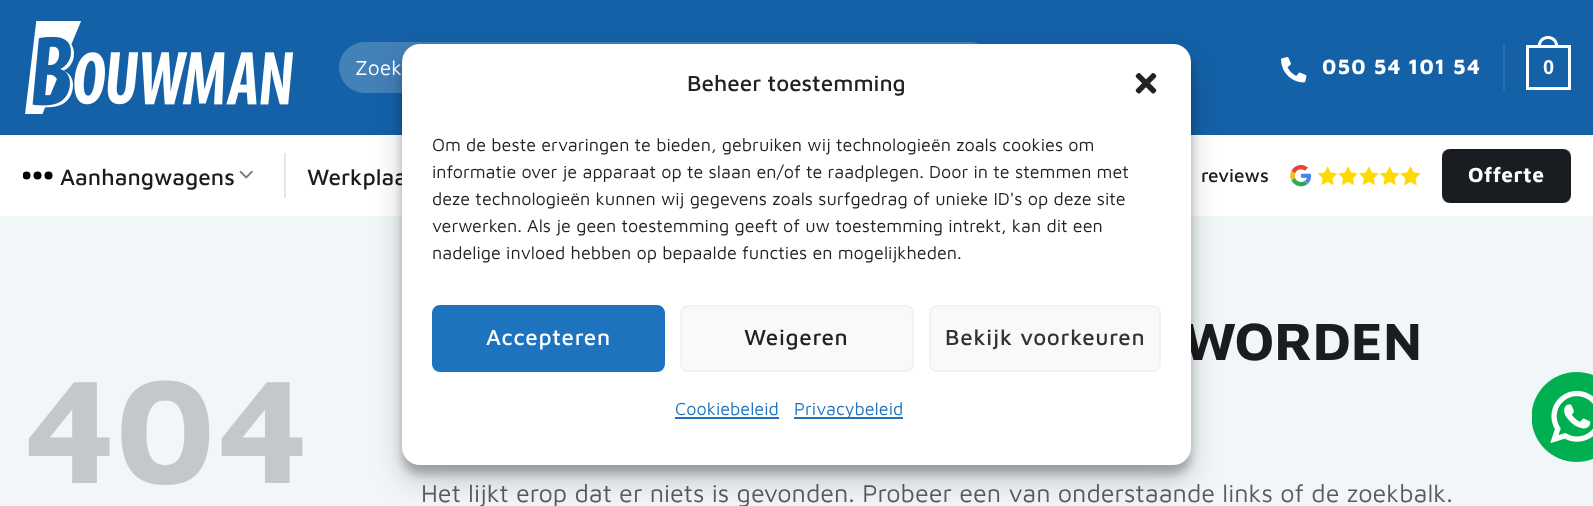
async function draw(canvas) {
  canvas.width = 1593
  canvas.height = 506
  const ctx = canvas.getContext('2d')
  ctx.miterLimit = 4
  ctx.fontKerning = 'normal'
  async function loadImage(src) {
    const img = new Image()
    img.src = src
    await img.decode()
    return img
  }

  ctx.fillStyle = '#f1f6f9'
  ctx.fillRect(0, 0, 1593, 506)
  ctx.fillStyle = '#1461a8'
  ctx.fillRect(0, 0, 1593, 135)
  ctx.drawImage(await loadImage('image0.png'), 25, 21, 269, 93)
  ctx.fillStyle = '#4381b9'
  ctx.beginPath()
  ctx.roundRect(339, 42, 657, 51, 25.5)
  ctx.fill()
  ctx.font = '21px Maven Pro'
  ctx.fillStyle = '#fff'
  ctx.fillText('Zoek', 355, 75)
  ctx.drawImage(await loadImage('image1.png'), 1281, 57, 26, 26)
  ctx.letterSpacing = '1px'
  ctx.font = 'bold 21.5px Maven Pro'
  ctx.fillText('050 54 101 54', 1322, 74)
  ctx.fillStyle = '#2c71b1'
  ctx.fillRect(1503, 45, 2, 45)
  ctx.strokeStyle = '#fff'
  ctx.lineWidth = 3
  ctx.strokeRect(1527.5, 46.5, 42, 42)
  ctx.fillStyle = '#fff'
  ctx.beginPath()
  ctx.moveTo(1548, 36)
  ctx.bezierCurveTo(1555, 36, 1558.5, 41.5, 1558.5, 48)
  ctx.lineTo(1537.5, 48)
  ctx.bezierCurveTo(1537.5, 41.5, 1541, 36, 1548, 36)
  ctx.closePath()
  ctx.moveTo(1548, 39)
  ctx.bezierCurveTo(1553.5, 39, 1555.5, 43.5, 1555.5, 48)
  ctx.lineTo(1540.5, 48)
  ctx.bezierCurveTo(1540.5, 43.5, 1542.5, 39, 1548, 39)
  ctx.closePath()
  ctx.fill('evenodd')
  ctx.letterSpacing = '0px'
  ctx.font = 'bold 20px Liberation Sans'
  ctx.fillText('0', 1543, 74)
  ctx.fillRect(0, 135, 1593, 81)
  ctx.save()
  ctx.beginPath()
  ctx.rect(23, 167, 30, 18)
  ctx.clip()
  ctx.fillStyle = '#000'
  ctx.beginPath()
  ctx.arc(26.5, 175.5, 4, 0, 2 * Math.PI)
  ctx.fill()
  ctx.restore()
  ctx.fillStyle = '#000'
  ctx.beginPath()
  ctx.arc(37.5, 175.5, 4, 0, 2 * Math.PI)
  ctx.fill()
  ctx.beginPath()
  ctx.arc(48.5, 175.5, 4, 0, 2 * Math.PI)
  ctx.fill()
  ctx.font = '500 22.75px Maven Pro'
  ctx.fillStyle = '#191c20'
  ctx.fillText('Aanhangwagens', 60, 185)
  ctx.drawImage(await loadImage('image2.png'), 239, 170, 14, 9)
  ctx.fillStyle = '#e6e6e6'
  ctx.fillRect(284, 153, 2, 45)
  ctx.fillStyle = '#191c20'
  ctx.fillText('Werkplaa', 307, 185)
  ctx.font = '500 19px Maven Pro'
  ctx.fillText('reviews', 1201, 182)
  ctx.drawImage(await loadImage('image3.png'), 1290, 164, 131, 23)
  ctx.beginPath()
  ctx.roundRect(1442, 149, 129, 54, 8)
  ctx.fill()
  ctx.strokeStyle = '#0000000d'
  ctx.lineWidth = 2
  ctx.strokeRect(1443, 150, 127, 52)
  ctx.letterSpacing = '0.5px'
  ctx.font = 'bold 21px Maven Pro'
  ctx.fillStyle = '#fff'
  ctx.fillText('Offerte', 1468, 182)
  ctx.letterSpacing = '0px'
  ctx.font = 'bold 151px Maven Pro'
  ctx.fillStyle = '#c4c8ca'
  ctx.fillText('404', 23, 483)
  ctx.font = 'bold 54px Maven Pro'
  ctx.fillStyle = '#191c20'
  ctx.fillText('WORDEN', 1182, 360)
  ctx.font = '25.2px Maven Pro'
  ctx.fillStyle = '#5b5b5b'
  ctx.fillText('Het lijkt erop dat er niets is gevonden. Probeer een van onderstaande links of de zoekbalk.', 421, 502)
  ctx.fillStyle = '#0000003b'
  ctx.filter = 'blur(4.5px)'
  ctx.beginPath()
  ctx.roundRect(402, 53, 789, 421, 18)
  ctx.fill()
  ctx.filter = 'none'
  ctx.fillStyle = '#00000030'
  ctx.filter = 'blur(15px)'
  ctx.beginPath()
  ctx.roundRect(402, 59, 789, 421, 18)
  ctx.fill()
  ctx.filter = 'none'
  ctx.fillStyle = '#fff'
  ctx.beginPath()
  ctx.roundRect(402, 44, 789, 421, 18)
  ctx.fill()
  ctx.font = '500 22.5px Maven Pro'
  ctx.fillStyle = '#222'
  ctx.fillText('Beheer toestemming', 687, 91)
  ctx.drawImage(await loadImage('image4.png'), 1135, 73, 22, 21)
  ctx.font = '18px Maven Pro'
  ctx.fillText('Om de beste ervaringen te bieden, gebruiken wij technologieën zoals cookies om', 432, 151)
  ctx.fillText('informatie over je apparaat op te slaan en/of te raadplegen. Door in te stemmen met', 432, 178)
  ctx.fillText('deze technologieën kunnen wij gegevens zoals surfgedrag of unieke ID\'s op deze site', 432, 205)
  ctx.fillText('verwerken. Als je geen toestemming geeft of uw toestemming intrekt, kan dit een', 432, 232)
  ctx.fillText('nadelige invloed hebben op bepaalde functies en mogelijkheden.', 432, 259)
  ctx.fillStyle = '#1e73be'
  ctx.beginPath()
  ctx.roundRect(433, 306, 231, 65, 7)
  ctx.fill()
  ctx.strokeStyle = '#1e73be'
  ctx.stroke()
  ctx.letterSpacing = '0.7px'
  ctx.font = '500 22.5px Maven Pro'
  ctx.fillStyle = '#fff'
  ctx.fillText('Accepteren', 486, 345)
  ctx.fillStyle = '#f9f9f9'
  ctx.beginPath()
  ctx.roundRect(681, 306, 232, 65, 7)
  ctx.fill()
  ctx.strokeStyle = '#f2f2f2'
  ctx.stroke()
  ctx.fillStyle = '#222'
  ctx.fillText('Weigeren', 744, 345)
  ctx.fillStyle = '#f9f9f9'
  ctx.beginPath()
  ctx.roundRect(930, 306, 230, 65, 7)
  ctx.fill()
  ctx.stroke()
  ctx.fillStyle = '#333'
  ctx.fillText('Bekijk voorkeuren', 945, 345)
  ctx.letterSpacing = '0px'
  ctx.font = '18px Maven Pro'
  ctx.fillStyle = '#1e73be'
  ctx.fillText('Cookiebeleid', 675, 415)
  ctx.fillRect(675, 417, 104, 2)
  ctx.fillRect(794, 417, 109, 2)
  ctx.fillText('Privacybeleid', 794, 415)
  ctx.drawImage(await loadImage('image5.png'), 1532, 372, 61, 90)
}

draw(document.querySelector('canvas'))
